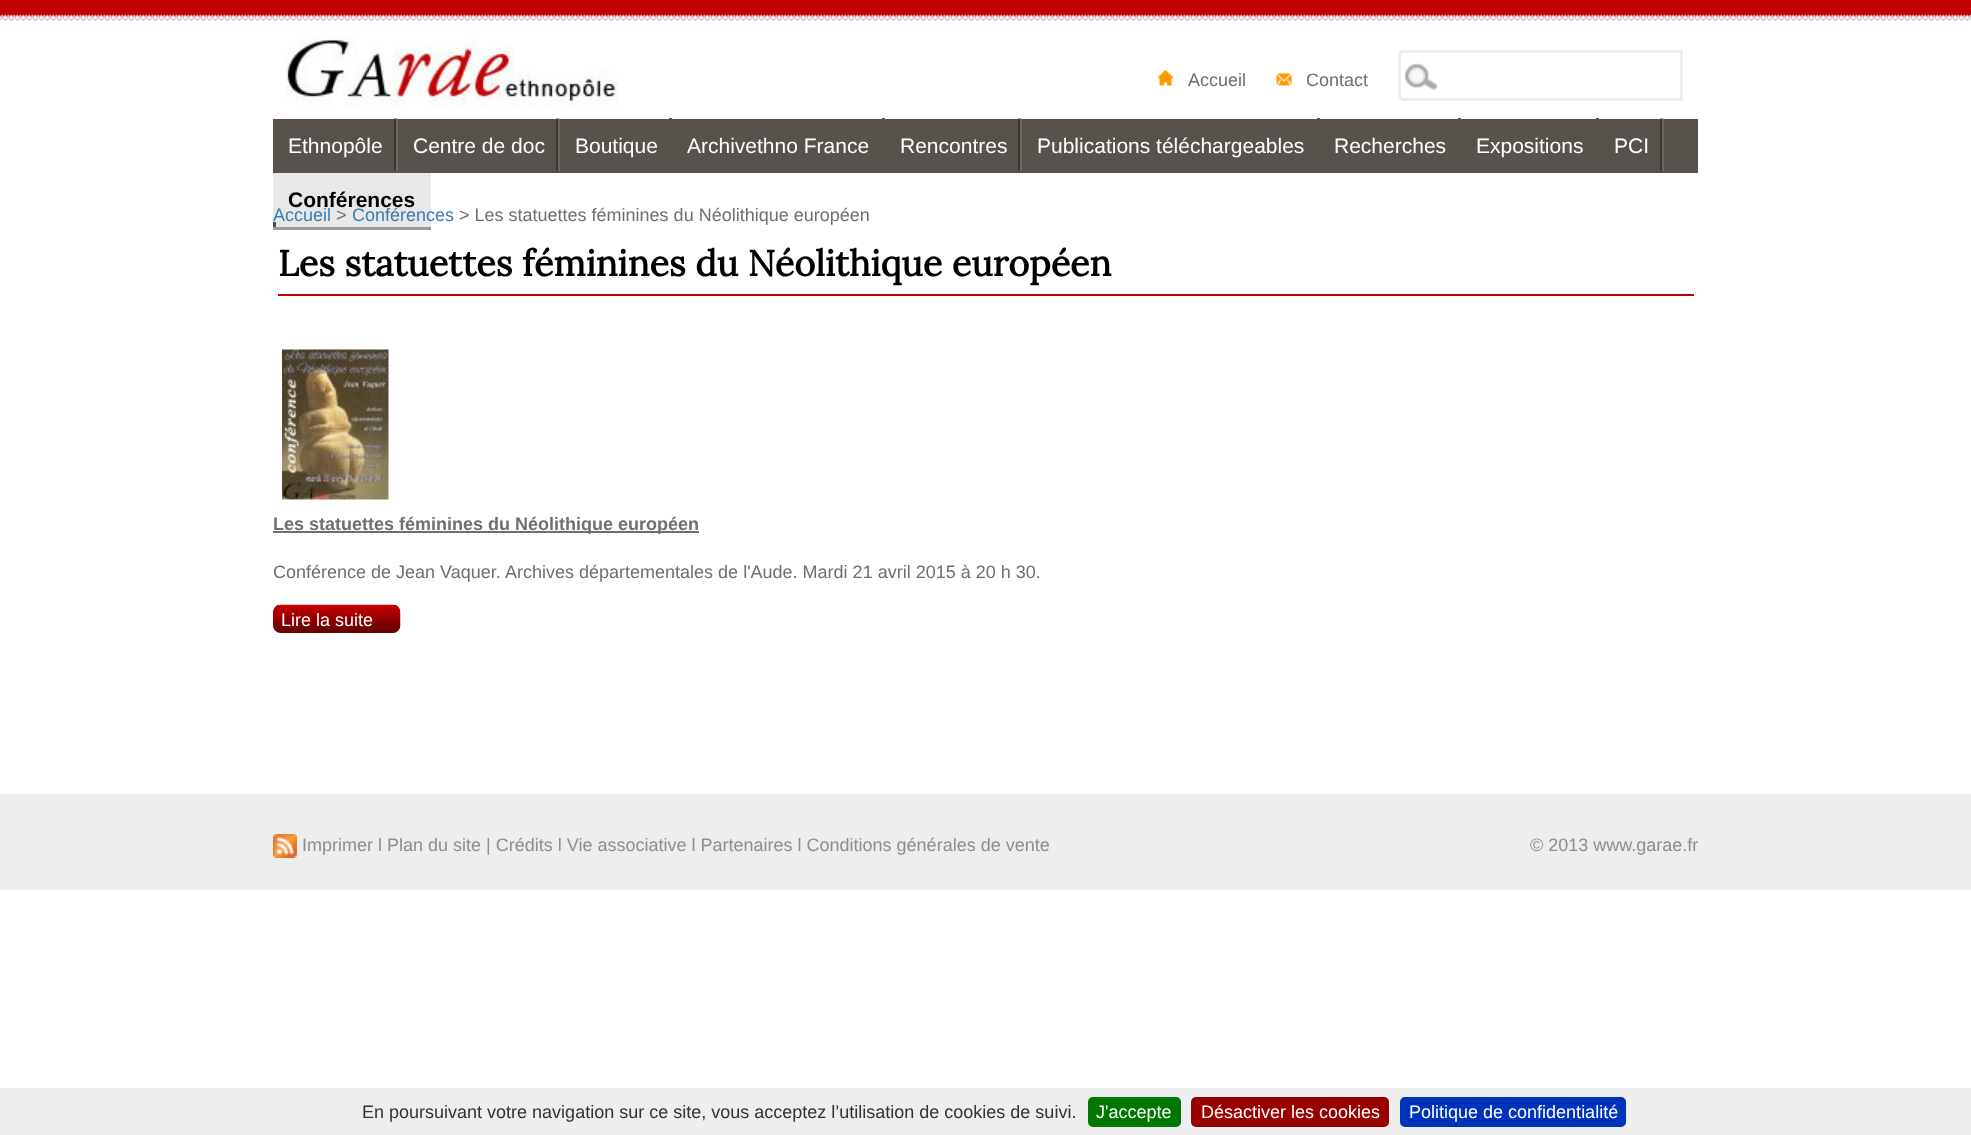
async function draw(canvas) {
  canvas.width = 1971
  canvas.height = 1135
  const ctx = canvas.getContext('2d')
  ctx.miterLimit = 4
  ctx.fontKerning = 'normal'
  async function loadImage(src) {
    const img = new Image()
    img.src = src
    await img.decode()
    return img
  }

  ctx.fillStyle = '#fff'
  ctx.fillRect(0, 0, 1971, 1135)
  ctx.drawImage(await loadImage('image0.png'), 0, 0, 1971, 21)
  ctx.drawImage(await loadImage('image1.png'), 285, 34, 333, 73)
  ctx.drawImage(await loadImage('image2.png'), 1158, 70, 15, 16)
  ctx.font = '18px Liberation Sans'
  ctx.fillStyle = '#736e6e'
  ctx.fillText('Accueil', 1188, 86)
  ctx.drawImage(await loadImage('image3.png'), 1276, 73, 16, 13)
  ctx.fillText('Contact', 1306, 86)
  ctx.drawImage(await loadImage('image4.png'), 1404, 63, 34, 27)
  ctx.beginPath()
  ctx.roundRect(1399.5, 51.5, 282, 48, [3.5, 0, 0, 3.5])
  ctx.strokeStyle = '#eceded'
  ctx.lineWidth = 3
  ctx.stroke()
  ctx.fillStyle = '#57524c'
  ctx.fillRect(273, 119, 1425, 54)
  ctx.drawImage(await loadImage('image5.png'), 394, 118, 4, 53)
  ctx.font = '21px Liberation Sans'
  ctx.fillStyle = '#fff'
  ctx.fillText('Ethnopôle', 288, 153)
  ctx.drawImage(await loadImage('image5.png'), 556, 118, 4, 53)
  ctx.fillText('Centre de doc', 413, 153)
  ctx.fillStyle = '#57524c'
  ctx.fillRect(669, 118, 3, 1)
  ctx.fillStyle = '#fff'
  ctx.fillText('Boutique', 575, 153)
  ctx.fillStyle = '#57524c'
  ctx.fillRect(882, 118, 3, 1)
  ctx.fillStyle = '#fff'
  ctx.fillText('Archivethno France', 687, 153)
  ctx.drawImage(await loadImage('image5.png'), 1018, 118, 4, 53)
  ctx.fillText('Rencontres', 900, 153)
  ctx.fillStyle = '#57524c'
  ctx.fillRect(1317, 118, 3, 1)
  ctx.fillStyle = '#fff'
  ctx.fillText('Publications téléchargeables', 1037, 153)
  ctx.fillStyle = '#57524c'
  ctx.fillRect(1458, 118, 3, 1)
  ctx.fillStyle = '#fff'
  ctx.fillText('Recherches', 1334, 153)
  ctx.fillStyle = '#57524c'
  ctx.fillRect(1596, 118, 3, 1)
  ctx.fillStyle = '#fff'
  ctx.fillText('Expositions', 1476, 153)
  ctx.drawImage(await loadImage('image5.png'), 1660, 118, 4, 53)
  ctx.fillText('PCI', 1614, 153)
  ctx.fillStyle = '#e8e8e8'
  ctx.fillRect(273, 173, 158, 54)
  ctx.fillStyle = '#514c47'
  ctx.fillRect(273, 222, 3, 8)
  ctx.fillStyle = '#999'
  ctx.fillRect(273, 227, 158, 3)
  ctx.font = 'bold 21px Liberation Sans'
  ctx.fillStyle = '#000'
  ctx.fillText('Conférences', 288, 207)
  ctx.font = '18px Liberation Sans'
  ctx.fillStyle = '#3e7cb2'
  ctx.fillText('Accueil', 273, 221)
  ctx.fillStyle = '#736e6e'
  ctx.fillText('>', 336, 221)
  ctx.fillStyle = '#3e7cb2'
  ctx.fillText('Conférences', 352, 221)
  ctx.fillStyle = '#736e6e'
  ctx.fillText('> Les statuettes féminines du Néolithique européen', 459, 221)
  ctx.fillStyle = '#c10000'
  ctx.fillRect(278, 294, 1416, 2)
  ctx.font = 'bold 36px Lora'
  ctx.fillStyle = '#000'
  ctx.fillText('Les statuettes féminines du Néolithique européen', 278, 276)
  ctx.drawImage(await loadImage('image6.png'), 282, 349, 107, 151)
  ctx.fillStyle = '#736e6e'
  ctx.fillRect(273, 531, 426, 2)
  ctx.font = 'bold 18px Liberation Sans'
  ctx.fillText('Les statuettes féminines du Néolithique européen', 273, 530)
  ctx.font = '18px Liberation Sans'
  ctx.fillText('Conférence de Jean Vaquer.', 273, 578)
  ctx.fillText('Archives départementales de l\'Aude. Mardi 21 avril 2015 à 20 h 30.', 505, 578)
  ctx.drawImage(await loadImage('image7.png'), 273, 604, 128, 29)
  ctx.fillStyle = '#fff'
  ctx.fillText('Lire la suite', 281, 626)
  ctx.fillStyle = '#eceded'
  ctx.fillRect(0, 794, 1971, 96)
  ctx.drawImage(await loadImage('image8.png'), 273, 834, 24, 24)
  ctx.fillStyle = '#8e8e8e'
  ctx.fillText('Imprimer l Plan du site | Crédits l Vie associative l Partenaires l Conditions générales de vente', 302, 851)
  ctx.fillText('© 2013 www.garae.fr', 1530, 851)
  ctx.fillStyle = '#eee'
  ctx.fillRect(0, 1088, 1971, 47)
  ctx.fillStyle = '#333'
  ctx.fillText('En poursuivant votre navigation sur ce site, vous acceptez l’utilisation de cookies de suivi.', 362, 1118)
  ctx.fillStyle = '#070'
  ctx.beginPath()
  ctx.roundRect(1088, 1097, 93, 30, 5)
  ctx.fill()
  ctx.fillStyle = '#fff'
  ctx.fillText('J\'accepte', 1096, 1118)
  ctx.fillStyle = '#900'
  ctx.beginPath()
  ctx.roundRect(1191, 1097, 198, 30, 5)
  ctx.fill()
  ctx.fillStyle = '#fff'
  ctx.fillText('Désactiver les cookies', 1201, 1118)
  ctx.fillStyle = '#03b'
  ctx.beginPath()
  ctx.roundRect(1400, 1097, 226, 30, 5)
  ctx.fill()
  ctx.fillStyle = '#fff'
  ctx.fillText('Politique de confidentialité', 1409, 1118)
}

draw(document.querySelector('canvas'))
